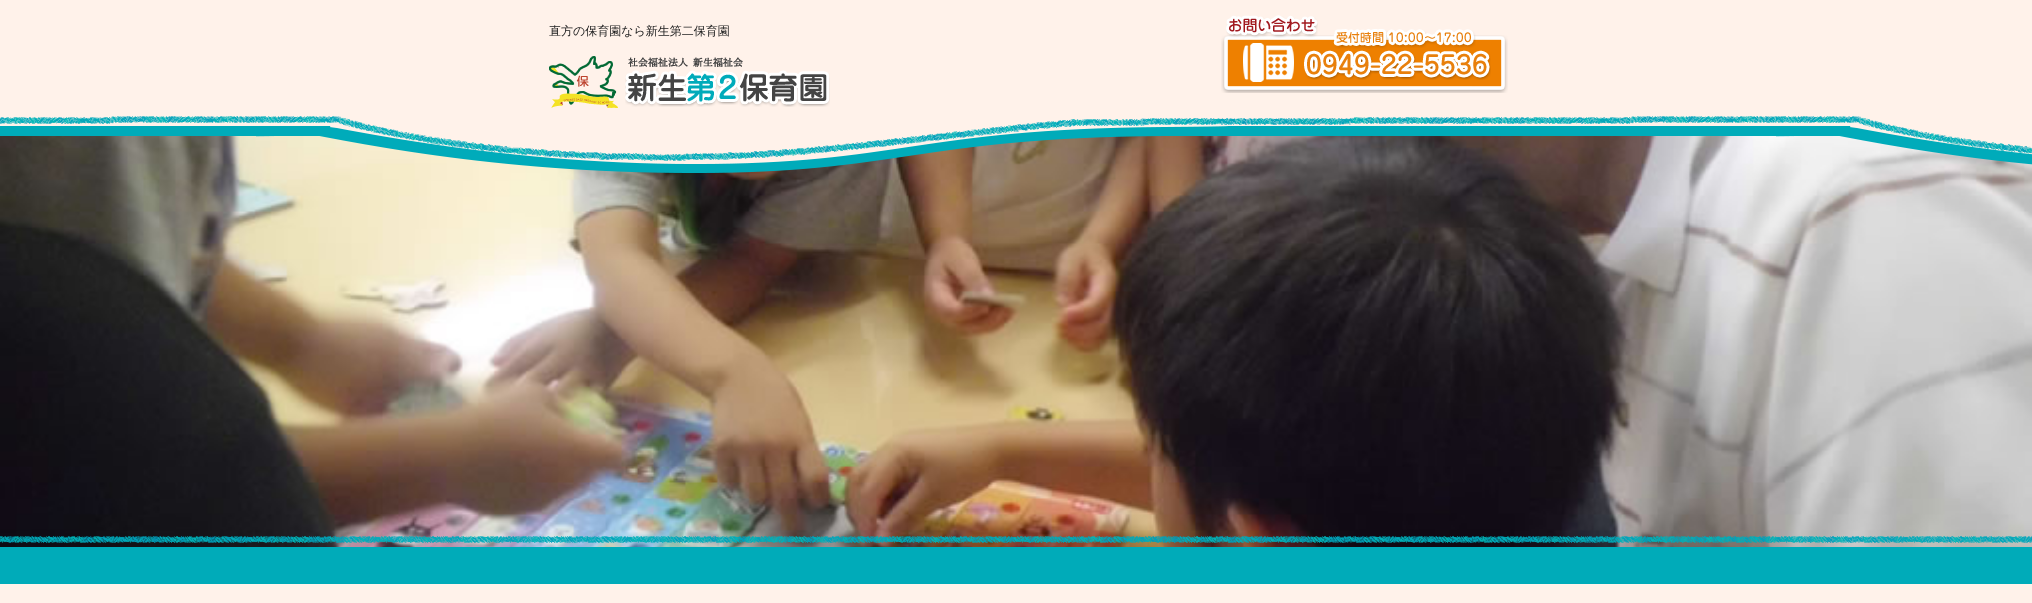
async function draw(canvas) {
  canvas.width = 2032
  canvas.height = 603
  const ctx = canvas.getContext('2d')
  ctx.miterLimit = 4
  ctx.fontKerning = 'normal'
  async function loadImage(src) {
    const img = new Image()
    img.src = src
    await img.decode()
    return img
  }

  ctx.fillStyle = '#fff2ea'
  ctx.fillRect(0, 0, 2032, 603)
  ctx.font = '500 12px WenQuanYi Zen Hei'
  ctx.fillStyle = '#222'
  ctx.fillText('直方の保育園なら新生第二保育園', 549, 35)
  ctx.drawImage(await loadImage('image0.png'), 549, 56, 281, 52)
  ctx.drawImage(await loadImage('image1.png'), 1221, 15, 287, 78)
  ctx.drawImage(await loadImage('image3.png'), 0, 136, 2032, 411)
  ctx.drawImage(await loadImage('image2.png'), 0, 116, 2032, 57)
  ctx.drawImage(await loadImage('image4.png'), 0, 536, 2032, 48)
}

draw(document.querySelector('canvas'))
